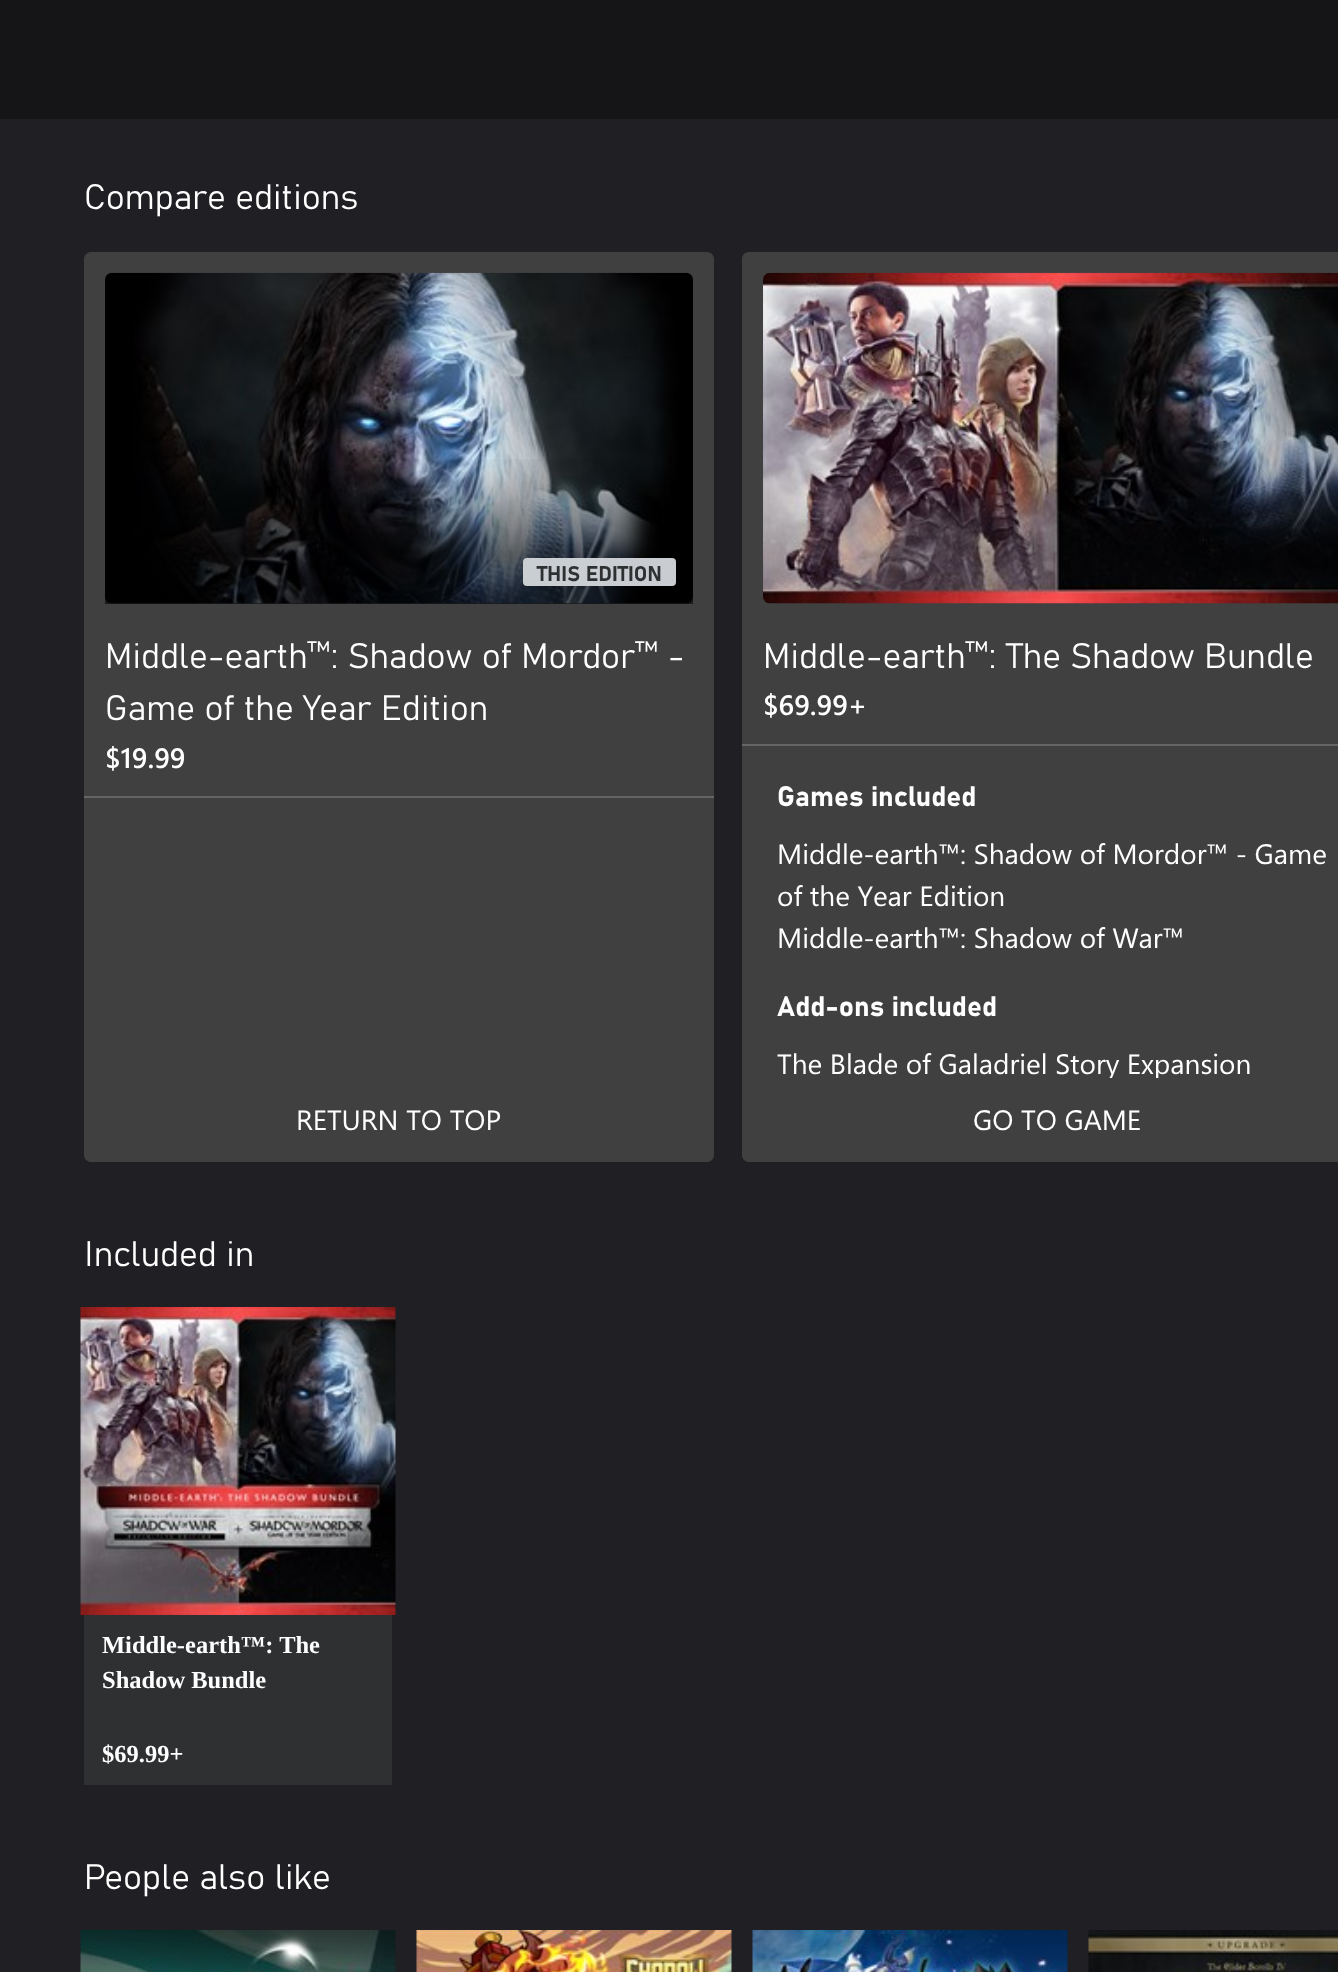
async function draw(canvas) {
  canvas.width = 1338
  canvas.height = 1972
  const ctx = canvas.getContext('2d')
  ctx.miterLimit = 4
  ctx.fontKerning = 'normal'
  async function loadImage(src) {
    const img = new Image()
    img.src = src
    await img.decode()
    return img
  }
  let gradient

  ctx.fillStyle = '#201f24'
  ctx.fillRect(0, 0, 1338, 1972)
  ctx.fillStyle = '#151517'
  ctx.fillRect(0, 0, 1338, 119)
  ctx.font = '300 35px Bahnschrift'
  ctx.fillStyle = '#fff'
  ctx.fillText('Compare editions', 84, 209)
  ctx.fillStyle = '#404040'
  ctx.beginPath()
  ctx.roundRect(84, 252, 630, 910, 7)
  ctx.fill()
  ctx.drawImage(await loadImage('image0.png'), 105, 272, 588, 332)
  gradient = ctx.createLinearGradient(399, 273, 399, 604)
  gradient.addColorStop(0.55, '#00000000')
  gradient.addColorStop(0.85, '#00000099')
  ctx.fillStyle = gradient
  ctx.fillRect(105, 459, 588, 145)
  ctx.fillStyle = '#d1d5daf5'
  ctx.beginPath()
  ctx.roundRect(523, 558, 153, 28, 4)
  ctx.fill()
  ctx.font = 'bold 21px Bahnschrift'
  ctx.fillStyle = '#2f3032'
  ctx.fillText('THIS EDITION', 537, 581)
  ctx.font = '300 35px Bahnschrift'
  ctx.fillStyle = '#fff'
  ctx.fillText('Middle-earth™: Shadow of Mordor™ -', 105, 668)
  ctx.fillText('Game of the Year Edition', 105, 720)
  ctx.font = '600 28px Segoe UI'
  ctx.fillText('$19.99', 105, 768)
  ctx.fillStyle = '#656565'
  ctx.fillRect(84, 796, 630, 2)
  ctx.font = '28px Segoe UI'
  ctx.fillStyle = '#fff'
  ctx.fillText('RETURN TO TOP', 296, 1130)
  ctx.fillStyle = '#404040'
  ctx.beginPath()
  ctx.moveTo(749, 252)
  ctx.lineTo(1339, 252)
  ctx.lineTo(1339, 1162)
  ctx.lineTo(749, 1162)
  ctx.bezierCurveTo(745, 1162, 742, 1159, 742, 1155)
  ctx.lineTo(742, 259)
  ctx.bezierCurveTo(742, 255, 745, 252, 749, 252)
  ctx.closePath()
  ctx.fill()
  ctx.drawImage(await loadImage('image1.png'), 763, 272, 575, 332)
  ctx.font = '300 35px Bahnschrift'
  ctx.fillStyle = '#fff'
  ctx.fillText('Middle-earth™: The Shadow Bundle', 763, 668)
  ctx.font = '600 28px Segoe UI'
  ctx.fillText('$69.99+', 763, 715)
  ctx.fillStyle = '#656565'
  ctx.fillRect(742, 744, 596, 2)
  ctx.font = 'bold 28px Bahnschrift'
  ctx.fillStyle = '#fff'
  ctx.fillText('Games included', 777, 806)
  ctx.font = '28px Segoe UI'
  ctx.fillText('Middle-earth™: Shadow of Mordor™ - Game', 777, 864)
  ctx.fillText('of the Year Edition', 777, 906)
  ctx.fillText('Middle-earth™: Shadow of War™', 777, 948)
  ctx.font = 'bold 28px Bahnschrift'
  ctx.fillText('Add-ons included', 777, 1016)
  ctx.save()
  ctx.beginPath()
  ctx.roundRect(768, 768, 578, 310, 9)
  ctx.clip()
  ctx.font = '28px Segoe UI'
  ctx.fillText('The Blade of Galadriel Story Expansion', 777, 1074)
  ctx.restore()
  ctx.font = '28px Segoe UI'
  ctx.fillText('GO TO GAME', 973, 1130)
  ctx.font = '300 35px Bahnschrift'
  ctx.fillText('Included in', 84, 1266)
  ctx.fillStyle = '#2f3032'
  ctx.fillRect(84, 1615, 308, 170)
  ctx.drawImage(await loadImage('image2.png'), 80, 1307, 316, 308)
  ctx.font = 'bold 24.5px Liberation Serif'
  ctx.fillStyle = '#fff'
  ctx.fillText('Middle-earth™: The', 102, 1653)
  ctx.fillText('Shadow Bundle', 102, 1688)
  ctx.fillText('$69.99+', 102, 1762)
  ctx.font = '300 35px Bahnschrift'
  ctx.fillText('People also like', 84, 1889)
  ctx.drawImage(await loadImage('image3.png'), 80, 1930, 316, 42)
  ctx.drawImage(await loadImage('image4.png'), 416, 1930, 316, 42)
  ctx.drawImage(await loadImage('image5.png'), 752, 1930, 316, 42)
  ctx.drawImage(await loadImage('image6.png'), 1088, 1930, 250, 42)
}

draw(document.querySelector('canvas'))
